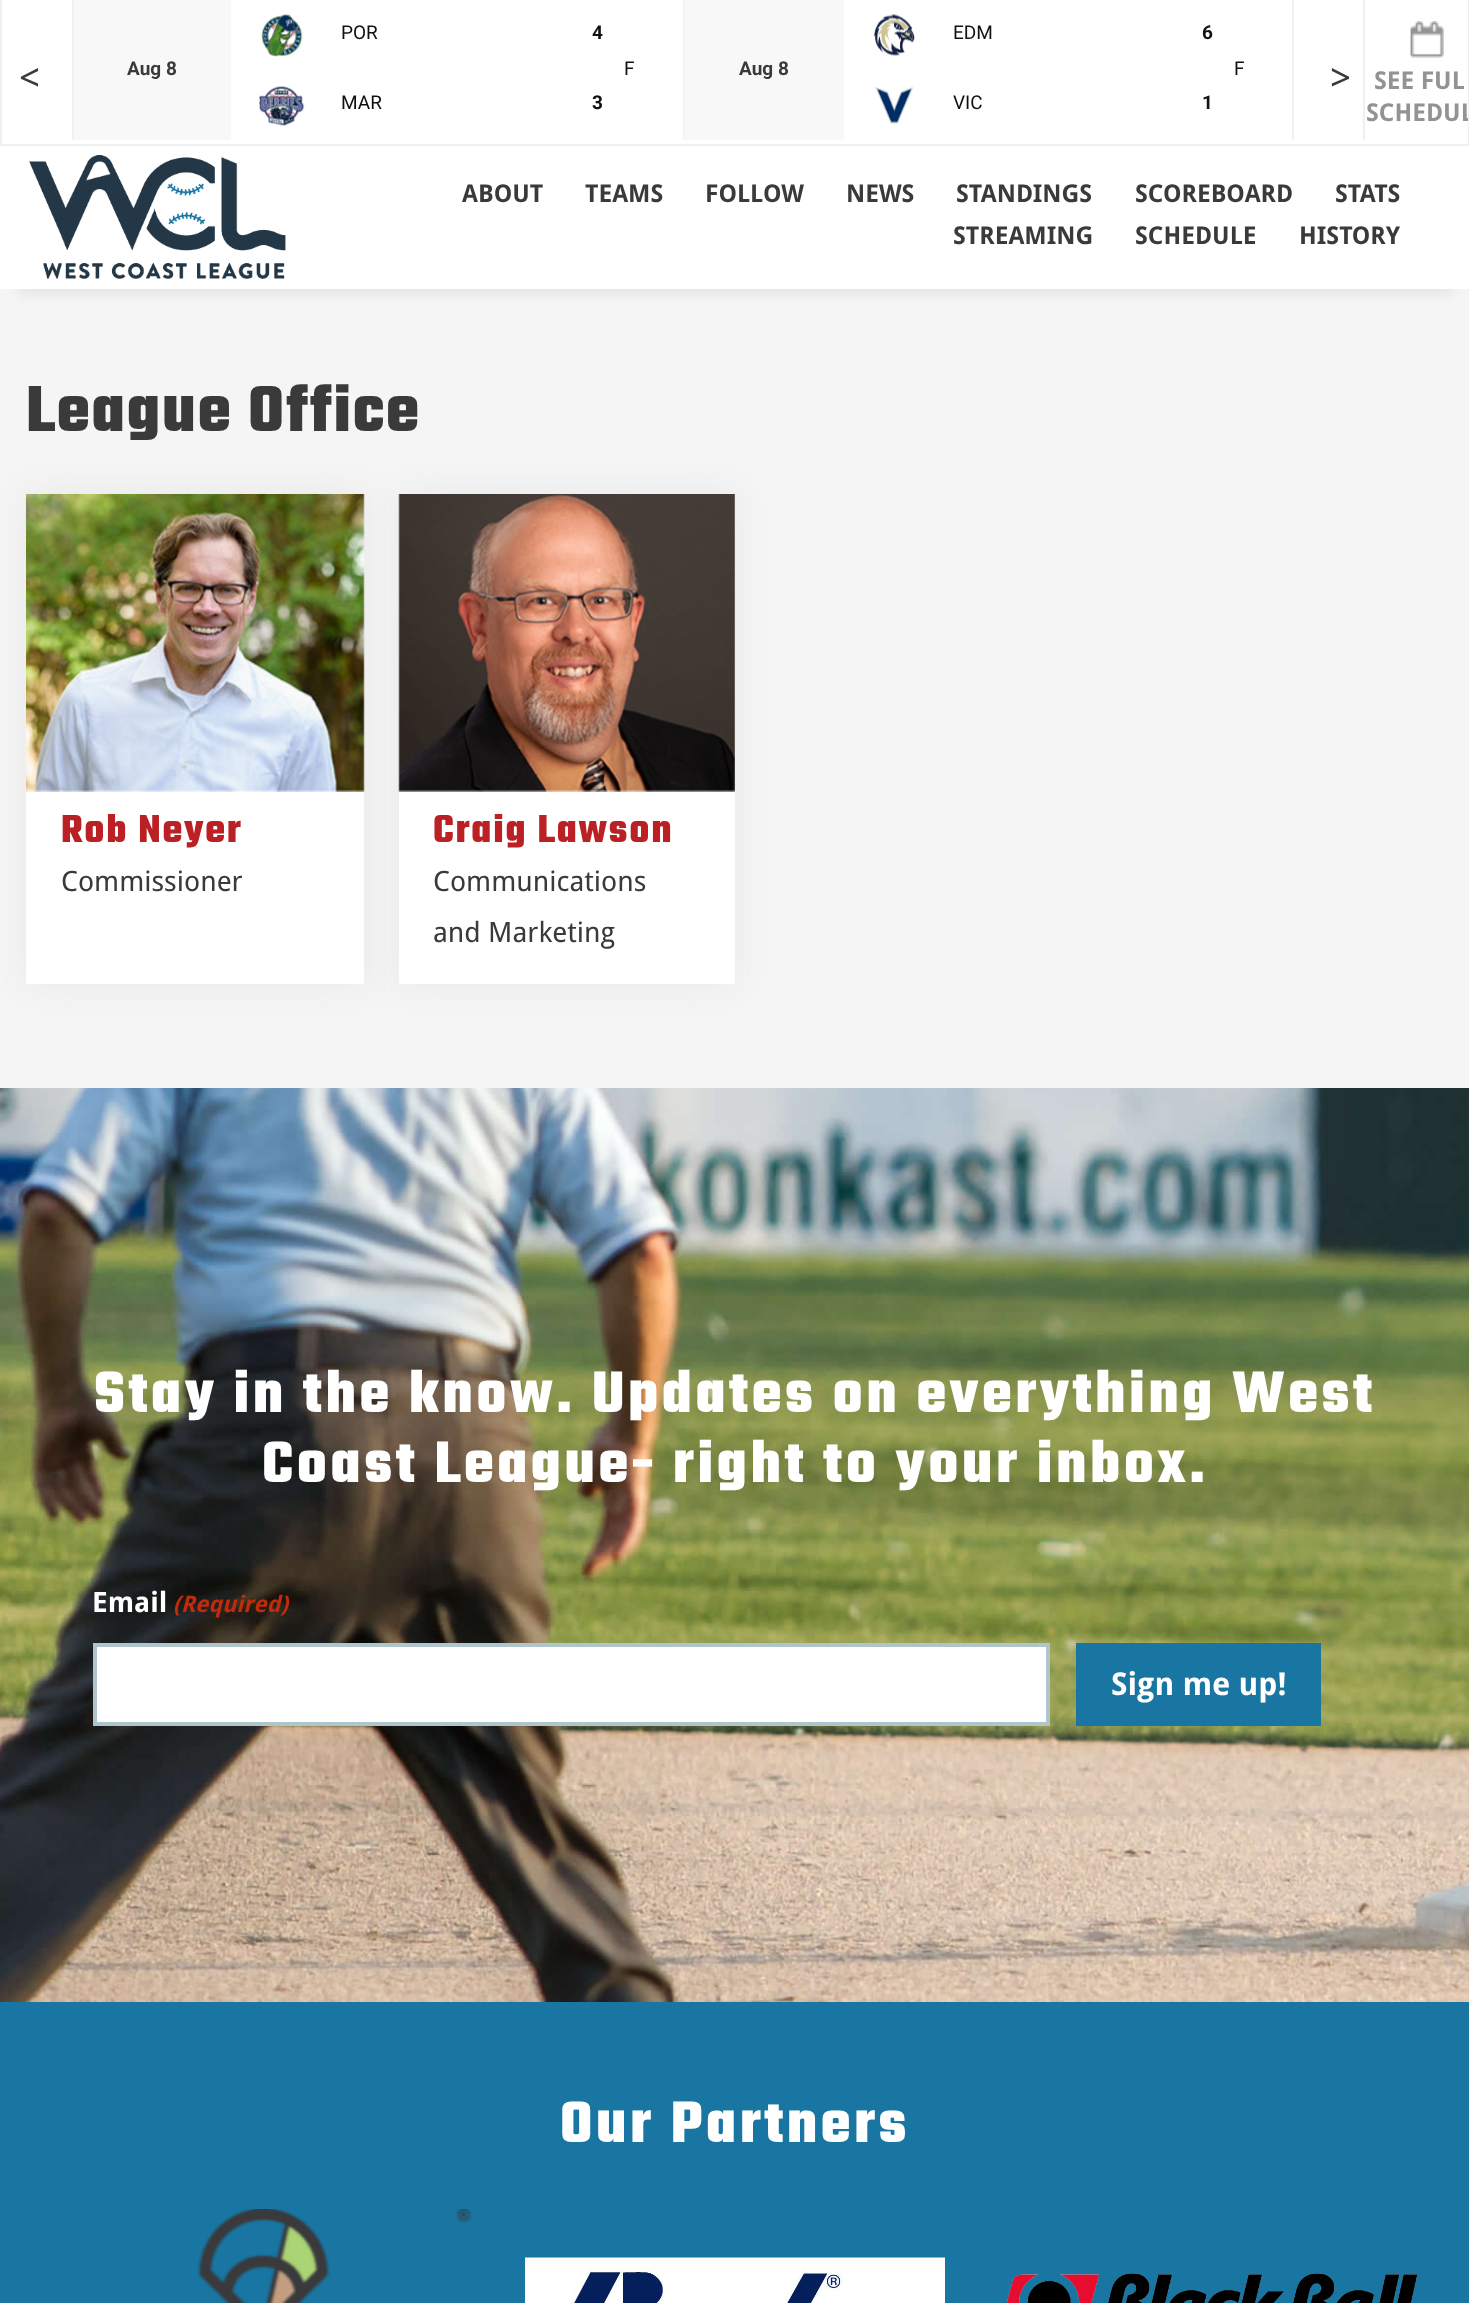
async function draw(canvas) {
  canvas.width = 1469
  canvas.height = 2303
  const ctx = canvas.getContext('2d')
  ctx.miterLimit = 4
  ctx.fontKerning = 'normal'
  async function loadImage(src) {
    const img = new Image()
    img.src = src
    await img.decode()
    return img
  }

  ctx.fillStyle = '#f5f5f5'
  ctx.fillRect(0, 0, 1469, 2303)
  ctx.fillStyle = '#fff'
  ctx.fillRect(2, 0, 1466, 144)
  ctx.fillStyle = '#eef0f1'
  ctx.fillRect(1468, 0, 1, 145)
  ctx.fillRect(0, 144, 1469, 2)
  ctx.fillRect(0, 0, 2, 145)
  ctx.font = '38px Droid Sans'
  ctx.fillStyle = '#3a3a3a'
  ctx.fillText('<', 19, 91)
  ctx.fillStyle = '#eef0f1'
  ctx.fillRect(1363, 0, 2, 140)
  ctx.fillRect(1292, 0, 2, 140)
  ctx.fillRect(72, 0, 2, 140)
  ctx.fillRect(683, 0, 1, 140)
  ctx.drawImage(await loadImage('image0.png'), 261, 14, 42, 43)
  ctx.font = '19px Roboto'
  ctx.fillStyle = '#111'
  ctx.fillText('POR', 341, 39)
  ctx.font = 'bold 19px Roboto'
  ctx.fillText('4', 592, 39)
  ctx.fillStyle = '#f8f8f8'
  ctx.fillRect(74, 0, 157, 140)
  ctx.fillStyle = '#3a3a3a'
  ctx.fillText('Aug 8', 127, 75)
  ctx.font = '19px Roboto'
  ctx.fillStyle = '#111'
  ctx.fillText('F', 624, 75)
  ctx.drawImage(await loadImage('image1.png'), 259, 86, 46, 40)
  ctx.fillText('MAR', 341, 109)
  ctx.font = 'bold 19px Roboto'
  ctx.fillText('3', 592, 109)
  ctx.drawImage(await loadImage('image2.png'), 873, 14, 42, 42)
  ctx.font = '19px Roboto'
  ctx.fillText('EDM', 953, 39)
  ctx.font = 'bold 19px Roboto'
  ctx.fillText('6', 1202, 39)
  ctx.fillStyle = '#f8f8f8'
  ctx.fillRect(684, 0, 160, 140)
  ctx.fillStyle = '#3a3a3a'
  ctx.fillText('Aug 8', 739, 75)
  ctx.font = '19px Roboto'
  ctx.fillStyle = '#111'
  ctx.fillText('F', 1234, 75)
  ctx.drawImage(await loadImage('image3.png'), 875, 86, 39, 38)
  ctx.fillText('VIC', 953, 109)
  ctx.font = 'bold 19px Roboto'
  ctx.fillText('1', 1202, 109)
  ctx.font = '38px Droid Sans'
  ctx.fillStyle = '#3a3a3a'
  ctx.fillText('>', 1330, 91)
  ctx.drawImage(await loadImage('image4.png'), 1410, 21, 34, 37)
  ctx.font = 'bold 24.5px Droid Sans'
  ctx.fillStyle = '#939393'
  ctx.fillText('SEE FUL', 1374, 89)
  ctx.save()
  ctx.beginPath()
  ctx.rect(2, 0, 1466, 144)
  ctx.clip()
  ctx.fillText('SCHEDUL', 1366, 121)
  ctx.restore()
  ctx.fillStyle = '#e8e8e8'
  ctx.filter = 'blur(4.5px)'
  ctx.beginPath()
  ctx.rect(18, 187, 1435, 109)
  ctx.fill()
  ctx.filter = 'none'
  ctx.fillStyle = '#fff'
  ctx.fillRect(0, 146, 1469, 143)
  ctx.drawImage(await loadImage('image5.png'), 29, 155, 257, 124)
  ctx.fillStyle = '#3a3a3a'
  ctx.fillText('ABOUT', 462, 202)
  ctx.fillText('TEAMS', 585, 202)
  ctx.fillText('FOLLOW', 705, 202)
  ctx.fillText('NEWS', 846, 202)
  ctx.fillText('STANDINGS', 956, 202)
  ctx.fillText('SCOREBOARD', 1135, 202)
  ctx.fillText('STATS', 1335, 202)
  ctx.fillText('STREAMING', 953, 244)
  ctx.fillText('SCHEDULE', 1135, 244)
  ctx.fillText('HISTORY', 1299, 244)
  ctx.letterSpacing = '1.75px'
  ctx.font = 'bold 70px Teko'
  ctx.fillText('League Office', 26, 431)
  ctx.fillStyle = '#e8e8e8'
  ctx.filter = 'blur(17.5px)'
  ctx.beginPath()
  ctx.rect(26, 494, 338, 490)
  ctx.fill()
  ctx.filter = 'none'
  ctx.fillStyle = '#fff'
  ctx.fillRect(26, 494, 338, 490)
  ctx.fillStyle = '#e8e8e8'
  ctx.filter = 'blur(17.5px)'
  ctx.beginPath()
  ctx.rect(399, 494, 336, 490)
  ctx.fill()
  ctx.filter = 'none'
  ctx.drawImage(await loadImage('image6.png'), 26, 494, 339, 298)
  ctx.font = 'bold 42px Teko'
  ctx.fillStyle = '#bb2025'
  ctx.fillText('Rob Neyer', 61, 842)
  ctx.letterSpacing = '0px'
  ctx.font = '28px Droid Sans'
  ctx.fillStyle = '#3a3a3a'
  ctx.fillText('Commissioner', 61, 891)
  ctx.fillStyle = '#fff'
  ctx.fillRect(399, 494, 336, 490)
  ctx.drawImage(await loadImage('image7.png'), 398, 494, 337, 298)
  ctx.letterSpacing = '1.75px'
  ctx.font = 'bold 42px Teko'
  ctx.fillStyle = '#bb2025'
  ctx.fillText('Craig Lawson', 433, 842)
  ctx.letterSpacing = '0px'
  ctx.font = '28px Droid Sans'
  ctx.fillStyle = '#3a3a3a'
  ctx.fillText('Communications', 433, 891)
  ctx.fillText('and Marketing', 433, 942)
  ctx.drawImage(await loadImage('image8.png'), 0, 1088, 1469, 914)
  ctx.letterSpacing = '3.5px'
  ctx.font = 'bold 63px Teko'
  ctx.fillStyle = '#fff'
  ctx.fillText('Stay in the know. Updates on everything West', 94, 1412)
  ctx.fillText('Coast League- right to your inbox.', 262, 1482)
  ctx.letterSpacing = '0px'
  ctx.font = 'bold 28px Droid Sans'
  ctx.fillText('Email', 92, 1612)
  ctx.font = 'italic bold 22.75px Droid Sans'
  ctx.fillStyle = '#c02b0a'
  ctx.fillText('(Required)', 173, 1612)
  ctx.fillStyle = '#fff'
  ctx.beginPath()
  ctx.rect(95, 1645, 953, 79)
  ctx.fill()
  ctx.strokeStyle = '#afc5cc'
  ctx.lineWidth = 4
  ctx.stroke()
  ctx.fillStyle = '#1976a2'
  ctx.fillRect(1076, 1643, 245, 83)
  ctx.font = 'bold 31.5px Droid Sans'
  ctx.fillStyle = '#fff'
  ctx.fillText('Sign me up!', 1111, 1695)
  ctx.fillStyle = '#1976a2'
  ctx.fillRect(0, 2002, 1469, 301)
  ctx.letterSpacing = '3.5px'
  ctx.font = 'bold 63px Teko'
  ctx.fillStyle = '#fff'
  ctx.fillText('Our Partners', 560, 2142)
  ctx.drawImage(await loadImage('image9.png'), 197, 2209, 275, 94)
  ctx.drawImage(await loadImage('image10.png'), 525, 2257, 420, 46)
  ctx.drawImage(await loadImage('image11.png'), 1006, 2273, 412, 30)
}

draw(document.querySelector('canvas'))
